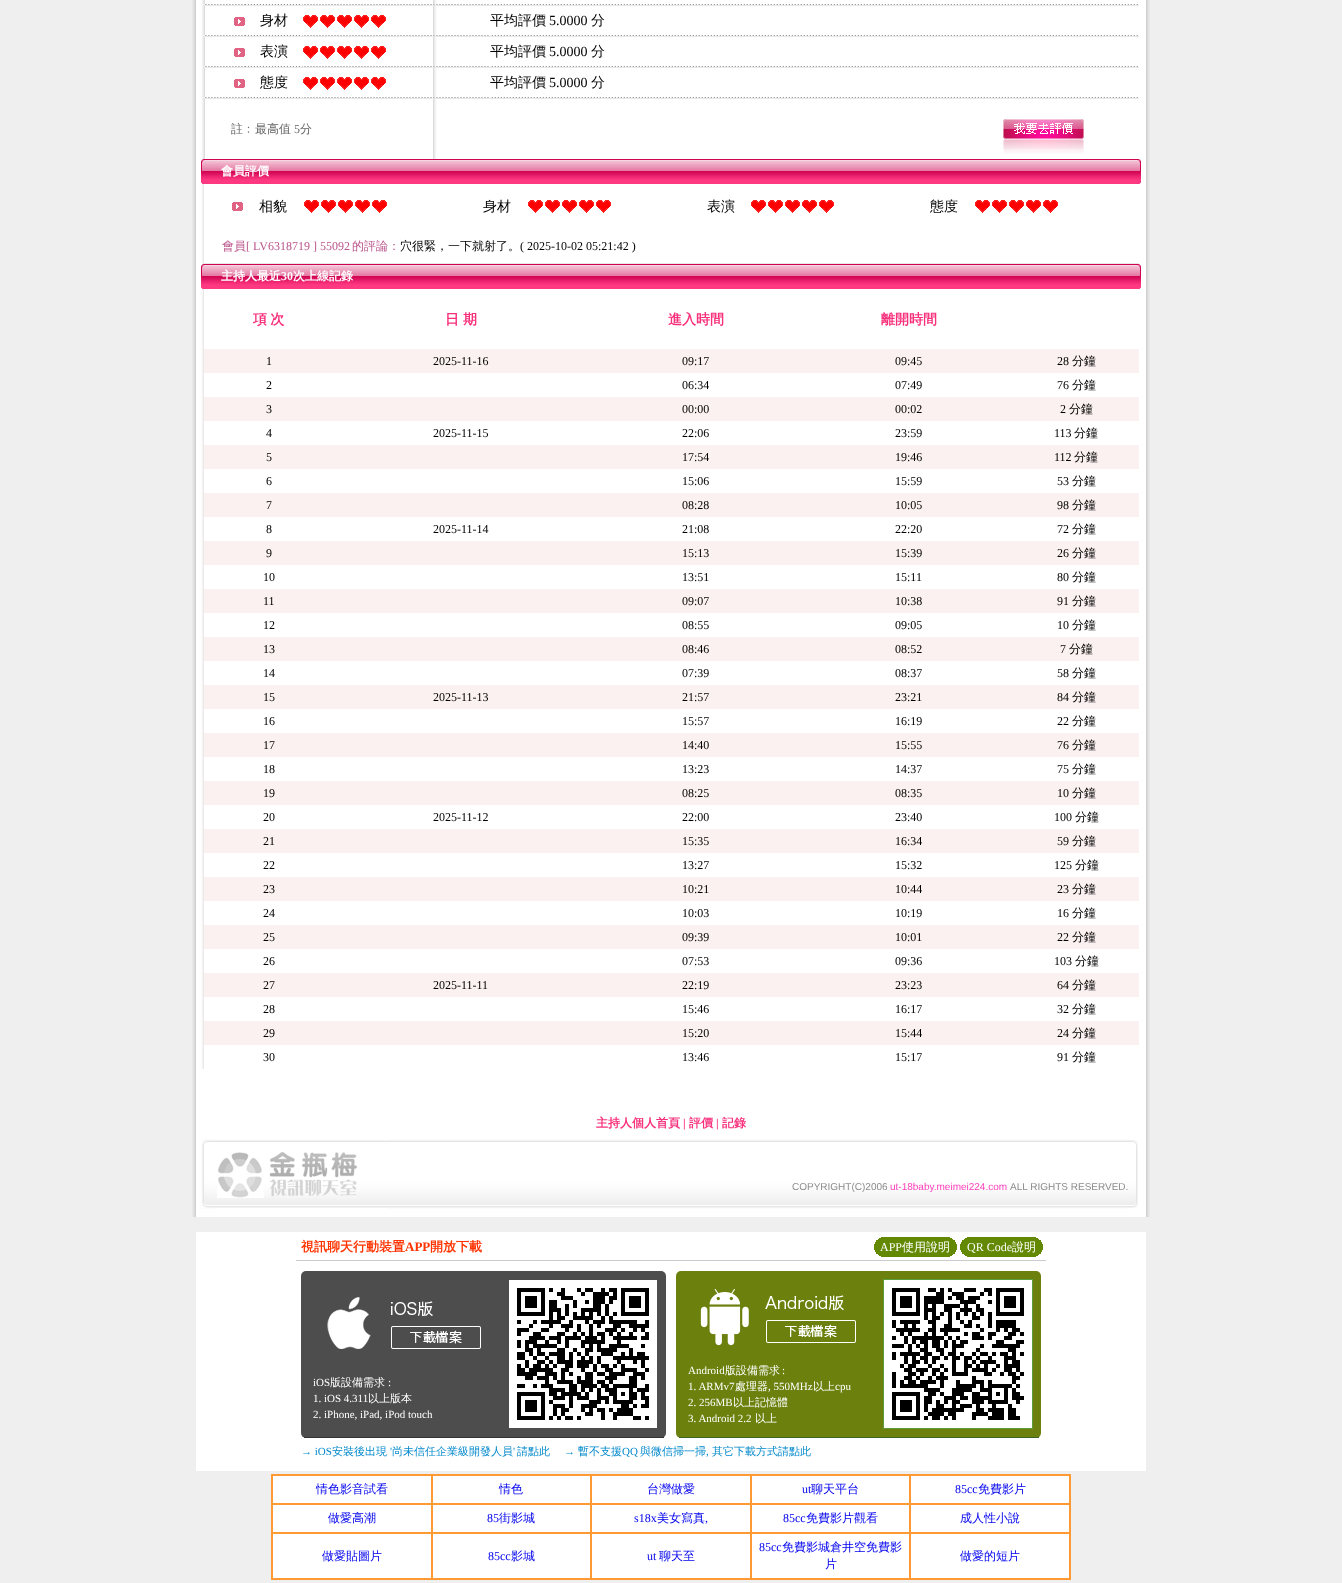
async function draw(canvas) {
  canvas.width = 1342
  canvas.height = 1583
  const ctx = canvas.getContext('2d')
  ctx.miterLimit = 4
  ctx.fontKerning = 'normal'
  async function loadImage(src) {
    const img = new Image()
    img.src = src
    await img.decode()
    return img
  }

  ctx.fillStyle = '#efefef'
  ctx.fillRect(0, 0, 1342, 1583)
  ctx.drawImage(await loadImage('image0.png'), 192, 0, 958, 1217)
  ctx.drawImage(await loadImage('image1.png'), 204, 4, 41, 1)
  ctx.fillStyle = '#e8e8e8'
  ctx.fillRect(204, 5, 935, 1)
  ctx.drawImage(await loadImage('image2.png'), 245, 4, 57, 1)
  ctx.drawImage(await loadImage('image3.png'), 302, 4, 187, 1)
  ctx.drawImage(await loadImage('image4.png'), 491, 4, 647, 1)
  ctx.drawImage(await loadImage('image2.png'), 245, 35, 57, 1)
  ctx.font = '500 14px WenQuanYi Zen Hei'
  ctx.fillStyle = '#000'
  ctx.fillText('身材', 260, 25)
  ctx.drawImage(await loadImage('image3.png'), 302, 35, 187, 1)
  ctx.drawImage(await loadImage('image5.png'), 303, 15, 15, 13)
  ctx.drawImage(await loadImage('image5.png'), 320, 15, 15, 13)
  ctx.drawImage(await loadImage('image5.png'), 337, 15, 15, 13)
  ctx.drawImage(await loadImage('image5.png'), 354, 15, 15, 13)
  ctx.drawImage(await loadImage('image5.png'), 371, 15, 15, 13)
  ctx.drawImage(await loadImage('image4.png'), 491, 35, 647, 1)
  ctx.fillText('平均評價', 490, 25)
  ctx.font = '14px Liberation Serif'
  ctx.fillText('5.0000', 549, 25)
  ctx.font = '500 14px WenQuanYi Zen Hei'
  ctx.fillText('分', 591, 25)
  ctx.drawImage(await loadImage('image1.png'), 204, 35, 41, 1)
  ctx.fillStyle = '#e8e8e8'
  ctx.fillRect(204, 36, 935, 1)
  ctx.drawImage(await loadImage('image6.png'), 234, 17, 11, 9)
  ctx.drawImage(await loadImage('image2.png'), 245, 66, 57, 1)
  ctx.fillStyle = '#000'
  ctx.fillText('表演', 260, 56)
  ctx.drawImage(await loadImage('image3.png'), 302, 66, 187, 1)
  ctx.drawImage(await loadImage('image5.png'), 303, 46, 15, 13)
  ctx.drawImage(await loadImage('image5.png'), 320, 46, 15, 13)
  ctx.drawImage(await loadImage('image5.png'), 337, 46, 15, 13)
  ctx.drawImage(await loadImage('image5.png'), 354, 46, 15, 13)
  ctx.drawImage(await loadImage('image5.png'), 371, 46, 15, 13)
  ctx.drawImage(await loadImage('image4.png'), 491, 66, 647, 1)
  ctx.fillText('平均評價', 490, 56)
  ctx.font = '14px Liberation Serif'
  ctx.fillText('5.0000', 549, 56)
  ctx.font = '500 14px WenQuanYi Zen Hei'
  ctx.fillText('分', 591, 56)
  ctx.drawImage(await loadImage('image1.png'), 204, 66, 41, 1)
  ctx.fillStyle = '#e8e8e8'
  ctx.fillRect(204, 67, 935, 1)
  ctx.drawImage(await loadImage('image6.png'), 234, 48, 11, 9)
  ctx.drawImage(await loadImage('image2.png'), 245, 97, 57, 1)
  ctx.fillStyle = '#000'
  ctx.fillText('態度', 260, 87)
  ctx.drawImage(await loadImage('image3.png'), 302, 97, 187, 1)
  ctx.drawImage(await loadImage('image5.png'), 303, 77, 15, 13)
  ctx.drawImage(await loadImage('image5.png'), 320, 77, 15, 13)
  ctx.drawImage(await loadImage('image5.png'), 337, 77, 15, 13)
  ctx.drawImage(await loadImage('image5.png'), 354, 77, 15, 13)
  ctx.drawImage(await loadImage('image5.png'), 371, 77, 15, 13)
  ctx.drawImage(await loadImage('image4.png'), 491, 97, 647, 1)
  ctx.fillText('平均評價', 490, 87)
  ctx.font = '14px Liberation Serif'
  ctx.fillText('5.0000', 549, 87)
  ctx.font = '500 14px WenQuanYi Zen Hei'
  ctx.fillText('分', 591, 87)
  ctx.drawImage(await loadImage('image1.png'), 204, 97, 41, 1)
  ctx.fillStyle = '#e8e8e8'
  ctx.fillRect(204, 98, 935, 1)
  ctx.drawImage(await loadImage('image6.png'), 234, 79, 11, 9)
  ctx.font = '500 12px WenQuanYi Zen Hei'
  ctx.fillStyle = '#666'
  ctx.fillText('註﹕最高值', 231, 133)
  ctx.font = '12px Liberation Serif'
  ctx.fillText('5', 294, 133)
  ctx.font = '500 12px WenQuanYi Zen Hei'
  ctx.fillText('分', 300, 133)
  ctx.drawImage(await loadImage('image7.png'), 1003, 119, 81, 35)
  ctx.drawImage(await loadImage('image8.png'), 205, 159, 16, 25)
  ctx.drawImage(await loadImage('image9.png'), 201, 159, 4, 25)
  ctx.drawImage(await loadImage('image10.png'), 221, 159, 606, 25)
  ctx.font = 'bold 12px WenQuanYi Zen Hei'
  ctx.fillStyle = '#fff'
  ctx.fillText('會員評價', 221, 175)
  ctx.drawImage(await loadImage('image11.png'), 827, 159, 310, 25)
  ctx.drawImage(await loadImage('image12.png'), 1137, 159, 4, 25)
  ctx.fillRect(204, 184, 233, 79)
  ctx.drawImage(await loadImage('image6.png'), 232, 202, 11, 9)
  ctx.font = '500 14px WenQuanYi Zen Hei'
  ctx.fillStyle = '#000'
  ctx.fillText('相貌', 259, 211)
  ctx.drawImage(await loadImage('image5.png'), 304, 200, 15, 13)
  ctx.drawImage(await loadImage('image5.png'), 321, 200, 15, 13)
  ctx.drawImage(await loadImage('image5.png'), 338, 200, 15, 13)
  ctx.drawImage(await loadImage('image5.png'), 355, 200, 15, 13)
  ctx.drawImage(await loadImage('image5.png'), 372, 200, 15, 13)
  ctx.fillText('身材', 483, 211)
  ctx.drawImage(await loadImage('image5.png'), 528, 200, 15, 13)
  ctx.drawImage(await loadImage('image5.png'), 545, 200, 15, 13)
  ctx.drawImage(await loadImage('image5.png'), 562, 200, 15, 13)
  ctx.drawImage(await loadImage('image5.png'), 579, 200, 15, 13)
  ctx.drawImage(await loadImage('image5.png'), 596, 200, 15, 13)
  ctx.fillText('表演', 707, 211)
  ctx.drawImage(await loadImage('image5.png'), 751, 200, 15, 13)
  ctx.drawImage(await loadImage('image5.png'), 768, 200, 15, 13)
  ctx.drawImage(await loadImage('image5.png'), 785, 200, 15, 13)
  ctx.drawImage(await loadImage('image5.png'), 802, 200, 15, 13)
  ctx.drawImage(await loadImage('image5.png'), 819, 200, 15, 13)
  ctx.fillText('態度', 930, 211)
  ctx.drawImage(await loadImage('image5.png'), 975, 200, 15, 13)
  ctx.drawImage(await loadImage('image5.png'), 992, 200, 15, 13)
  ctx.drawImage(await loadImage('image5.png'), 1009, 200, 15, 13)
  ctx.drawImage(await loadImage('image5.png'), 1026, 200, 15, 13)
  ctx.drawImage(await loadImage('image5.png'), 1043, 200, 15, 13)
  ctx.fillStyle = '#e8e8e8'
  ctx.fillRect(204, 263, 935, 1)
  ctx.font = '500 12px WenQuanYi Zen Hei'
  ctx.fillStyle = '#ba538b'
  ctx.fillText('會員', 222, 250)
  ctx.font = '12px Liberation Serif'
  ctx.fillText('[ LV6318719 ] 55092', 246, 250)
  ctx.font = '500 12px WenQuanYi Zen Hei'
  ctx.fillText('的評論：', 352, 250)
  ctx.fillStyle = '#000'
  ctx.fillText('穴很緊，一下就射了。', 400, 250)
  ctx.font = '12px Liberation Serif'
  ctx.fillText('( 2025-10-02 05:21:42 )', 520, 250)
  ctx.drawImage(await loadImage('image8.png'), 205, 264, 16, 25)
  ctx.drawImage(await loadImage('image9.png'), 201, 264, 4, 25)
  ctx.drawImage(await loadImage('image10.png'), 221, 264, 606, 25)
  ctx.font = 'bold 12px WenQuanYi Zen Hei'
  ctx.fillStyle = '#fff'
  ctx.fillText('主持人最近', 221, 280)
  ctx.font = 'bold 12px Liberation Serif'
  ctx.fillText('30', 281, 280)
  ctx.font = 'bold 12px WenQuanYi Zen Hei'
  ctx.fillText('次上線記錄', 293, 280)
  ctx.drawImage(await loadImage('image11.png'), 827, 264, 310, 25)
  ctx.drawImage(await loadImage('image12.png'), 1137, 264, 4, 25)
  ctx.fillRect(204, 289, 233, 780)
  ctx.wordSpacing = '-1px'
  ctx.font = 'bold 14px WenQuanYi Zen Hei'
  ctx.fillStyle = '#f8307b'
  ctx.fillText('項 次', 253, 324)
  ctx.wordSpacing = '0px'
  ctx.fillText('日', 445, 324)
  ctx.fillText('期', 463, 324)
  ctx.fillText('進入時間', 668, 324)
  ctx.fillText('離開時間', 881, 324)
  ctx.fillStyle = '#fcf1f1'
  ctx.fillRect(204, 349, 935, 24)
  ctx.font = '12px Liberation Serif'
  ctx.fillStyle = '#000'
  ctx.fillText('1', 266, 365)
  ctx.fillText('2025-11-16', 433, 365)
  ctx.fillText('09:17', 682, 365)
  ctx.fillText('09:45', 895, 365)
  ctx.fillText('28', 1057, 365)
  ctx.font = '500 12px WenQuanYi Zen Hei'
  ctx.fillText('分鐘', 1072, 365)
  ctx.font = '12px Liberation Serif'
  ctx.fillText('2', 266, 389)
  ctx.fillText('06:34', 682, 389)
  ctx.fillText('07:49', 895, 389)
  ctx.fillText('76', 1057, 389)
  ctx.font = '500 12px WenQuanYi Zen Hei'
  ctx.fillText('分鐘', 1072, 389)
  ctx.fillStyle = '#fcf1f1'
  ctx.fillRect(204, 397, 935, 24)
  ctx.font = '12px Liberation Serif'
  ctx.fillStyle = '#000'
  ctx.fillText('3', 266, 413)
  ctx.fillText('00:00', 682, 413)
  ctx.fillText('00:02', 895, 413)
  ctx.fillText('2', 1060, 413)
  ctx.font = '500 12px WenQuanYi Zen Hei'
  ctx.fillText('分鐘', 1069, 413)
  ctx.font = '12px Liberation Serif'
  ctx.fillText('4', 266, 437)
  ctx.fillText('2025-11-15', 433, 437)
  ctx.fillText('22:06', 682, 437)
  ctx.fillText('23:59', 895, 437)
  ctx.fillText('113', 1054, 437)
  ctx.font = '500 12px WenQuanYi Zen Hei'
  ctx.fillText('分鐘', 1074, 437)
  ctx.fillStyle = '#fcf1f1'
  ctx.fillRect(204, 445, 935, 24)
  ctx.font = '12px Liberation Serif'
  ctx.fillStyle = '#000'
  ctx.fillText('5', 266, 461)
  ctx.fillText('17:54', 682, 461)
  ctx.fillText('19:46', 895, 461)
  ctx.fillText('112', 1054, 461)
  ctx.font = '500 12px WenQuanYi Zen Hei'
  ctx.fillText('分鐘', 1074, 461)
  ctx.font = '12px Liberation Serif'
  ctx.fillText('6', 266, 485)
  ctx.fillText('15:06', 682, 485)
  ctx.fillText('15:59', 895, 485)
  ctx.fillText('53', 1057, 485)
  ctx.font = '500 12px WenQuanYi Zen Hei'
  ctx.fillText('分鐘', 1072, 485)
  ctx.fillStyle = '#fcf1f1'
  ctx.fillRect(204, 493, 935, 24)
  ctx.font = '12px Liberation Serif'
  ctx.fillStyle = '#000'
  ctx.fillText('7', 266, 509)
  ctx.fillText('08:28', 682, 509)
  ctx.fillText('10:05', 895, 509)
  ctx.fillText('98', 1057, 509)
  ctx.font = '500 12px WenQuanYi Zen Hei'
  ctx.fillText('分鐘', 1072, 509)
  ctx.font = '12px Liberation Serif'
  ctx.fillText('8', 266, 533)
  ctx.fillText('2025-11-14', 433, 533)
  ctx.fillText('21:08', 682, 533)
  ctx.fillText('22:20', 895, 533)
  ctx.fillText('72', 1057, 533)
  ctx.font = '500 12px WenQuanYi Zen Hei'
  ctx.fillText('分鐘', 1072, 533)
  ctx.fillStyle = '#fcf1f1'
  ctx.fillRect(204, 541, 935, 24)
  ctx.font = '12px Liberation Serif'
  ctx.fillStyle = '#000'
  ctx.fillText('9', 266, 557)
  ctx.fillText('15:13', 682, 557)
  ctx.fillText('15:39', 895, 557)
  ctx.fillText('26', 1057, 557)
  ctx.font = '500 12px WenQuanYi Zen Hei'
  ctx.fillText('分鐘', 1072, 557)
  ctx.font = '12px Liberation Serif'
  ctx.fillText('10', 263, 581)
  ctx.fillText('13:51', 682, 581)
  ctx.fillText('15:11', 895, 581)
  ctx.fillText('80', 1057, 581)
  ctx.font = '500 12px WenQuanYi Zen Hei'
  ctx.fillText('分鐘', 1072, 581)
  ctx.fillStyle = '#fcf1f1'
  ctx.fillRect(204, 589, 935, 24)
  ctx.font = '12px Liberation Serif'
  ctx.fillStyle = '#000'
  ctx.fillText('11', 263, 605)
  ctx.fillText('09:07', 682, 605)
  ctx.fillText('10:38', 895, 605)
  ctx.fillText('91', 1057, 605)
  ctx.font = '500 12px WenQuanYi Zen Hei'
  ctx.fillText('分鐘', 1072, 605)
  ctx.font = '12px Liberation Serif'
  ctx.fillText('12', 263, 629)
  ctx.fillText('08:55', 682, 629)
  ctx.fillText('09:05', 895, 629)
  ctx.fillText('10', 1057, 629)
  ctx.font = '500 12px WenQuanYi Zen Hei'
  ctx.fillText('分鐘', 1072, 629)
  ctx.fillStyle = '#fcf1f1'
  ctx.fillRect(204, 637, 935, 24)
  ctx.font = '12px Liberation Serif'
  ctx.fillStyle = '#000'
  ctx.fillText('13', 263, 653)
  ctx.fillText('08:46', 682, 653)
  ctx.fillText('08:52', 895, 653)
  ctx.fillText('7', 1060, 653)
  ctx.font = '500 12px WenQuanYi Zen Hei'
  ctx.fillText('分鐘', 1069, 653)
  ctx.font = '12px Liberation Serif'
  ctx.fillText('14', 263, 677)
  ctx.fillText('07:39', 682, 677)
  ctx.fillText('08:37', 895, 677)
  ctx.fillText('58', 1057, 677)
  ctx.font = '500 12px WenQuanYi Zen Hei'
  ctx.fillText('分鐘', 1072, 677)
  ctx.fillStyle = '#fcf1f1'
  ctx.fillRect(204, 685, 935, 24)
  ctx.font = '12px Liberation Serif'
  ctx.fillStyle = '#000'
  ctx.fillText('15', 263, 701)
  ctx.fillText('2025-11-13', 433, 701)
  ctx.fillText('21:57', 682, 701)
  ctx.fillText('23:21', 895, 701)
  ctx.fillText('84', 1057, 701)
  ctx.font = '500 12px WenQuanYi Zen Hei'
  ctx.fillText('分鐘', 1072, 701)
  ctx.font = '12px Liberation Serif'
  ctx.fillText('16', 263, 725)
  ctx.fillText('15:57', 682, 725)
  ctx.fillText('16:19', 895, 725)
  ctx.fillText('22', 1057, 725)
  ctx.font = '500 12px WenQuanYi Zen Hei'
  ctx.fillText('分鐘', 1072, 725)
  ctx.fillStyle = '#fcf1f1'
  ctx.fillRect(204, 733, 935, 24)
  ctx.font = '12px Liberation Serif'
  ctx.fillStyle = '#000'
  ctx.fillText('17', 263, 749)
  ctx.fillText('14:40', 682, 749)
  ctx.fillText('15:55', 895, 749)
  ctx.fillText('76', 1057, 749)
  ctx.font = '500 12px WenQuanYi Zen Hei'
  ctx.fillText('分鐘', 1072, 749)
  ctx.font = '12px Liberation Serif'
  ctx.fillText('18', 263, 773)
  ctx.fillText('13:23', 682, 773)
  ctx.fillText('14:37', 895, 773)
  ctx.fillText('75', 1057, 773)
  ctx.font = '500 12px WenQuanYi Zen Hei'
  ctx.fillText('分鐘', 1072, 773)
  ctx.fillStyle = '#fcf1f1'
  ctx.fillRect(204, 781, 935, 24)
  ctx.font = '12px Liberation Serif'
  ctx.fillStyle = '#000'
  ctx.fillText('19', 263, 797)
  ctx.fillText('08:25', 682, 797)
  ctx.fillText('08:35', 895, 797)
  ctx.fillText('10', 1057, 797)
  ctx.font = '500 12px WenQuanYi Zen Hei'
  ctx.fillText('分鐘', 1072, 797)
  ctx.font = '12px Liberation Serif'
  ctx.fillText('20', 263, 821)
  ctx.fillText('2025-11-12', 433, 821)
  ctx.fillText('22:00', 682, 821)
  ctx.fillText('23:40', 895, 821)
  ctx.fillText('100', 1054, 821)
  ctx.font = '500 12px WenQuanYi Zen Hei'
  ctx.fillText('分鐘', 1075, 821)
  ctx.fillStyle = '#fcf1f1'
  ctx.fillRect(204, 829, 935, 24)
  ctx.font = '12px Liberation Serif'
  ctx.fillStyle = '#000'
  ctx.fillText('21', 263, 845)
  ctx.fillText('15:35', 682, 845)
  ctx.fillText('16:34', 895, 845)
  ctx.fillText('59', 1057, 845)
  ctx.font = '500 12px WenQuanYi Zen Hei'
  ctx.fillText('分鐘', 1072, 845)
  ctx.font = '12px Liberation Serif'
  ctx.fillText('22', 263, 869)
  ctx.fillText('13:27', 682, 869)
  ctx.fillText('15:32', 895, 869)
  ctx.fillText('125', 1054, 869)
  ctx.font = '500 12px WenQuanYi Zen Hei'
  ctx.fillText('分鐘', 1075, 869)
  ctx.fillStyle = '#fcf1f1'
  ctx.fillRect(204, 877, 935, 24)
  ctx.font = '12px Liberation Serif'
  ctx.fillStyle = '#000'
  ctx.fillText('23', 263, 893)
  ctx.fillText('10:21', 682, 893)
  ctx.fillText('10:44', 895, 893)
  ctx.fillText('23', 1057, 893)
  ctx.font = '500 12px WenQuanYi Zen Hei'
  ctx.fillText('分鐘', 1072, 893)
  ctx.font = '12px Liberation Serif'
  ctx.fillText('24', 263, 917)
  ctx.fillText('10:03', 682, 917)
  ctx.fillText('10:19', 895, 917)
  ctx.fillText('16', 1057, 917)
  ctx.font = '500 12px WenQuanYi Zen Hei'
  ctx.fillText('分鐘', 1072, 917)
  ctx.fillStyle = '#fcf1f1'
  ctx.fillRect(204, 925, 935, 24)
  ctx.font = '12px Liberation Serif'
  ctx.fillStyle = '#000'
  ctx.fillText('25', 263, 941)
  ctx.fillText('09:39', 682, 941)
  ctx.fillText('10:01', 895, 941)
  ctx.fillText('22', 1057, 941)
  ctx.font = '500 12px WenQuanYi Zen Hei'
  ctx.fillText('分鐘', 1072, 941)
  ctx.font = '12px Liberation Serif'
  ctx.fillText('26', 263, 965)
  ctx.fillText('07:53', 682, 965)
  ctx.fillText('09:36', 895, 965)
  ctx.fillText('103', 1054, 965)
  ctx.font = '500 12px WenQuanYi Zen Hei'
  ctx.fillText('分鐘', 1075, 965)
  ctx.fillStyle = '#fcf1f1'
  ctx.fillRect(204, 973, 935, 24)
  ctx.font = '12px Liberation Serif'
  ctx.fillStyle = '#000'
  ctx.fillText('27', 263, 989)
  ctx.fillText('2025-11-11', 433, 989)
  ctx.fillText('22:19', 682, 989)
  ctx.fillText('23:23', 895, 989)
  ctx.fillText('64', 1057, 989)
  ctx.font = '500 12px WenQuanYi Zen Hei'
  ctx.fillText('分鐘', 1072, 989)
  ctx.font = '12px Liberation Serif'
  ctx.fillText('28', 263, 1013)
  ctx.fillText('15:46', 682, 1013)
  ctx.fillText('16:17', 895, 1013)
  ctx.fillText('32', 1057, 1013)
  ctx.font = '500 12px WenQuanYi Zen Hei'
  ctx.fillText('分鐘', 1072, 1013)
  ctx.fillStyle = '#fcf1f1'
  ctx.fillRect(204, 1021, 935, 24)
  ctx.font = '12px Liberation Serif'
  ctx.fillStyle = '#000'
  ctx.fillText('29', 263, 1037)
  ctx.fillText('15:20', 682, 1037)
  ctx.fillText('15:44', 895, 1037)
  ctx.fillText('24', 1057, 1037)
  ctx.font = '500 12px WenQuanYi Zen Hei'
  ctx.fillText('分鐘', 1072, 1037)
  ctx.font = '12px Liberation Serif'
  ctx.fillText('30', 263, 1061)
  ctx.fillText('13:46', 682, 1061)
  ctx.fillText('15:17', 895, 1061)
  ctx.fillText('91', 1057, 1061)
  ctx.font = '500 12px WenQuanYi Zen Hei'
  ctx.fillText('分鐘', 1072, 1061)
  ctx.fillStyle = '#fff'
  ctx.fillRect(201, 1069, 236, 70)
  ctx.font = 'bold 12px WenQuanYi Zen Hei'
  ctx.fillStyle = '#f8307b'
  ctx.fillText('主持人個人首頁', 596, 1127)
  ctx.font = 'bold 12px Liberation Serif'
  ctx.fillText('|', 683, 1127)
  ctx.font = 'bold 12px WenQuanYi Zen Hei'
  ctx.fillText('評價', 689, 1127)
  ctx.font = 'bold 12px Liberation Serif'
  ctx.fillText('|', 716, 1127)
  ctx.font = 'bold 12px WenQuanYi Zen Hei'
  ctx.fillText('記錄', 722, 1127)
  ctx.drawImage(await loadImage('image13.png'), 201, 1139, 14, 70)
  ctx.drawImage(await loadImage('image14.png'), 201, 1140, 6, 68)
  ctx.drawImage(await loadImage('image15.png'), 215, 1140, 173, 68)
  ctx.drawImage(await loadImage('image16.png'), 217, 1152, 140, 46)
  ctx.drawImage(await loadImage('image17.png'), 388, 1139, 740, 70)
  ctx.font = '10px Liberation Sans'
  ctx.fillStyle = '#8c8c8c'
  ctx.fillText('COPYRIGHT(C)2006', 792, 1190)
  ctx.fillStyle = '#fe3ebb'
  ctx.fillText('ut-18baby.meimei224.com', 890, 1190)
  ctx.fillStyle = '#8c8c8c'
  ctx.fillText('ALL RIGHTS RESERVED.', 1010, 1190)
  ctx.drawImage(await loadImage('image18.png'), 1128, 1140, 10, 68)
  ctx.fillStyle = '#fff'
  ctx.fillRect(196, 1209, 241, 8)
  ctx.fillRect(196, 1232, 950, 239)
  ctx.fillStyle = '#ccc'
  ctx.fillRect(296, 1260, 750, 1)
  ctx.font = 'bold 13px WenQuanYi Zen Hei'
  ctx.fillStyle = '#f30'
  ctx.fillText('視訊聊天行動裝置', 301, 1251)
  ctx.font = 'bold 13px Liberation Serif'
  ctx.fillText('APP', 405, 1251)
  ctx.font = 'bold 13px WenQuanYi Zen Hei'
  ctx.fillText('開放下載', 430, 1251)
  ctx.drawImage(await loadImage('image19.png'), 874, 1237, 83, 20)
  ctx.font = '12px Liberation Serif'
  ctx.fillStyle = '#fff'
  ctx.fillText('APP', 880, 1251)
  ctx.font = '500 12px WenQuanYi Zen Hei'
  ctx.fillText('使用說明', 902, 1251)
  ctx.drawImage(await loadImage('image19.png'), 960, 1237, 83, 20)
  ctx.font = '12px Liberation Serif'
  ctx.fillText('QR Code', 967, 1251)
  ctx.font = '500 12px WenQuanYi Zen Hei'
  ctx.fillText('說明', 1012, 1251)
  ctx.fillStyle = '#4d4d4d'
  ctx.beginPath()
  ctx.roundRect(301, 1271, 365, 167, 5)
  ctx.fill()
  ctx.fillStyle = '#333'
  ctx.fillRect(304, 1437, 360, 1)
  ctx.drawImage(await loadImage('image20.png'), 327, 1297, 154, 52)
  ctx.drawImage(await loadImage('image21.png'), 509, 1280, 148, 148)
  ctx.font = '11px Liberation Serif'
  ctx.fillStyle = '#fff'
  ctx.fillText('iOS', 313, 1386)
  ctx.font = '500 11px WenQuanYi Zen Hei'
  ctx.fillText('版設備需求', 330, 1386)
  ctx.font = '11px Liberation Serif'
  ctx.fillText(':', 388, 1386)
  ctx.fillText('1. iOS 4.311', 313, 1402)
  ctx.font = '500 11px WenQuanYi Zen Hei'
  ctx.fillText('以上版本', 368, 1402)
  ctx.font = '11px Liberation Serif'
  ctx.fillText('2. iPhone, iPad, iPod touch', 313, 1418)
  ctx.fillStyle = '#6c800d'
  ctx.beginPath()
  ctx.roundRect(676, 1271, 365, 167, 5)
  ctx.fill()
  ctx.fillStyle = '#3c6626'
  ctx.fillRect(679, 1437, 360, 1)
  ctx.drawImage(await loadImage('image22.png'), 700, 1289, 156, 57)
  ctx.strokeStyle = '#5d9c3b'
  ctx.strokeRect(883.5, 1279.5, 149, 149)
  ctx.drawImage(await loadImage('image23.png'), 884, 1280, 148, 148)
  ctx.fillStyle = '#fff'
  ctx.fillText('Android', 688, 1374)
  ctx.font = '500 11px WenQuanYi Zen Hei'
  ctx.fillText('版設備需求', 725, 1374)
  ctx.font = '11px Liberation Serif'
  ctx.fillText(':', 782, 1374)
  ctx.fillText('1. ARMv7', 688, 1390)
  ctx.font = '500 11px WenQuanYi Zen Hei'
  ctx.fillText('處理器', 735, 1390)
  ctx.font = '11px Liberation Serif'
  ctx.fillText(', 550MHz', 768, 1390)
  ctx.font = '500 11px WenQuanYi Zen Hei'
  ctx.fillText('以上', 813, 1390)
  ctx.font = '11px Liberation Serif'
  ctx.fillText('cpu', 835, 1390)
  ctx.fillText('2. 256MB', 688, 1406)
  ctx.font = '500 11px WenQuanYi Zen Hei'
  ctx.fillText('以上記憶體', 733, 1406)
  ctx.font = '11px Liberation Serif'
  ctx.fillText('3. Android 2.2', 688, 1422)
  ctx.font = '500 11px WenQuanYi Zen Hei'
  ctx.fillText('以上', 755, 1422)
  ctx.font = '11px Liberation Serif'
  ctx.fillStyle = '#08c'
  ctx.fillText('→ iOS', 301, 1455)
  ctx.font = '500 11px WenQuanYi Zen Hei'
  ctx.fillText('安裝後出現', 332, 1455)
  ctx.font = '11px Liberation Serif'
  ctx.fillText('\'', 390, 1455)
  ctx.font = '500 11px WenQuanYi Zen Hei'
  ctx.fillText('尚未信任企業級開發人員', 392, 1455)
  ctx.font = '11px Liberation Serif'
  ctx.fillText('\'', 513, 1455)
  ctx.font = '500 11px WenQuanYi Zen Hei'
  ctx.fillText('請點此', 517, 1455)
  ctx.font = '11px Liberation Serif'
  ctx.fillText('→', 564, 1455)
  ctx.font = '500 11px WenQuanYi Zen Hei'
  ctx.fillText('暫不支援', 578, 1455)
  ctx.font = '11px Liberation Serif'
  ctx.fillText('QQ', 622, 1455)
  ctx.font = '500 11px WenQuanYi Zen Hei'
  ctx.fillText('與微信掃一掃', 640, 1455)
  ctx.font = '11px Liberation Serif'
  ctx.fillText(',', 706, 1455)
  ctx.font = '500 11px WenQuanYi Zen Hei'
  ctx.fillText('其它下載方式請點此', 712, 1455)
  ctx.fillStyle = '#fff'
  ctx.fillRect(273, 1476, 796, 102)
  ctx.strokeStyle = '#f93'
  ctx.strokeRect(271.5, 1474.5, 799, 105)
  ctx.strokeRect(272.5, 1475.5, 159, 28)
  ctx.font = '500 12px WenQuanYi Zen Hei'
  ctx.fillStyle = '#00e'
  ctx.fillText('情色影音試看', 316, 1493)
  ctx.strokeRect(432.5, 1475.5, 158, 28)
  ctx.fillText('情色', 499, 1493)
  ctx.strokeRect(591.5, 1475.5, 159, 28)
  ctx.fillText('台灣做愛', 647, 1493)
  ctx.strokeRect(751.5, 1475.5, 158, 28)
  ctx.font = '12px Liberation Serif'
  ctx.fillText('ut', 802, 1493)
  ctx.font = '500 12px WenQuanYi Zen Hei'
  ctx.fillText('聊天平台', 811, 1493)
  ctx.strokeRect(910.5, 1475.5, 159, 28)
  ctx.font = '12px Liberation Serif'
  ctx.fillText('85cc', 955, 1493)
  ctx.font = '500 12px WenQuanYi Zen Hei'
  ctx.fillText('免費影片', 978, 1493)
  ctx.strokeRect(272.5, 1504.5, 159, 28)
  ctx.fillText('做愛高潮', 328, 1522)
  ctx.strokeRect(432.5, 1504.5, 158, 28)
  ctx.font = '12px Liberation Serif'
  ctx.fillText('85', 487, 1522)
  ctx.font = '500 12px WenQuanYi Zen Hei'
  ctx.fillText('街影城', 499, 1522)
  ctx.strokeRect(591.5, 1504.5, 159, 28)
  ctx.font = '12px Liberation Serif'
  ctx.fillText('s18x', 634, 1522)
  ctx.font = '500 12px WenQuanYi Zen Hei'
  ctx.fillText('美女寫真', 657, 1522)
  ctx.font = '12px Liberation Serif'
  ctx.fillText(',', 705, 1522)
  ctx.strokeRect(751.5, 1504.5, 158, 28)
  ctx.fillText('85cc', 783, 1522)
  ctx.font = '500 12px WenQuanYi Zen Hei'
  ctx.fillText('免費影片觀看', 806, 1522)
  ctx.strokeRect(910.5, 1504.5, 159, 28)
  ctx.fillText('成人性小說', 960, 1522)
  ctx.strokeRect(272.5, 1533.5, 159, 45)
  ctx.fillText('做愛貼圖片', 322, 1560)
  ctx.strokeRect(432.5, 1533.5, 158, 45)
  ctx.font = '12px Liberation Serif'
  ctx.fillText('85cc', 488, 1560)
  ctx.font = '500 12px WenQuanYi Zen Hei'
  ctx.fillText('影城', 511, 1560)
  ctx.strokeRect(591.5, 1533.5, 159, 45)
  ctx.font = '12px Liberation Serif'
  ctx.fillText('ut', 647, 1560)
  ctx.font = '500 12px WenQuanYi Zen Hei'
  ctx.fillText('聊天至', 659, 1560)
  ctx.strokeRect(751.5, 1533.5, 158, 45)
  ctx.font = '12px Liberation Serif'
  ctx.fillText('85cc', 759, 1551)
  ctx.font = '500 12px WenQuanYi Zen Hei'
  ctx.fillText('免費影城倉井空免費影', 782, 1551)
  ctx.fillText('片', 825, 1568)
  ctx.strokeRect(910.5, 1533.5, 159, 45)
  ctx.fillText('做愛的短片', 960, 1560)
}

draw(document.querySelector('canvas'))
